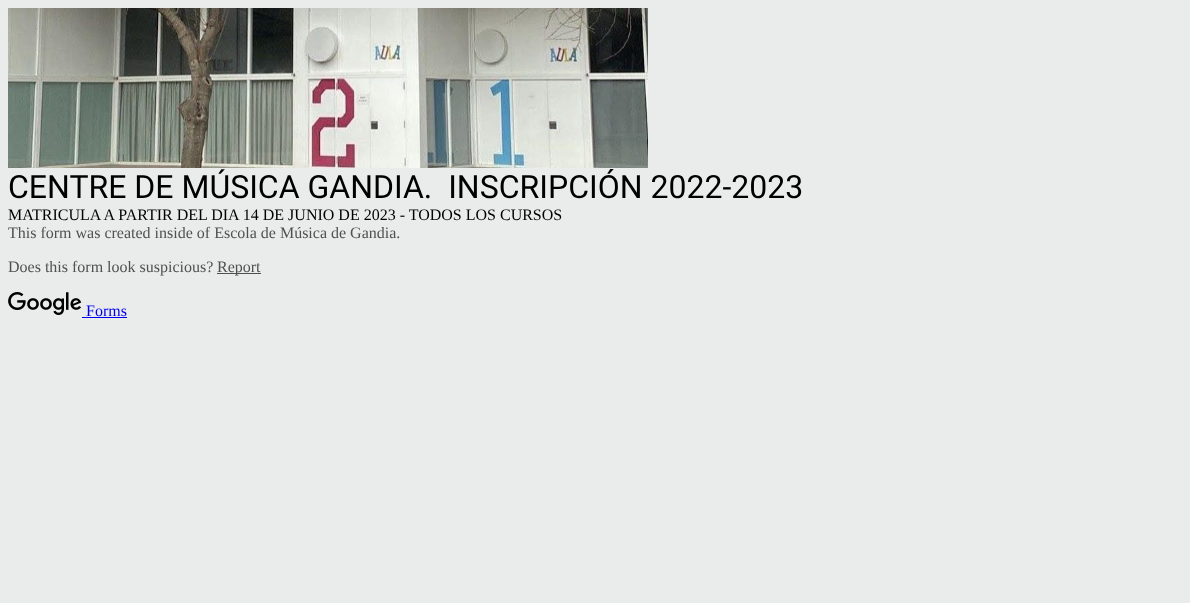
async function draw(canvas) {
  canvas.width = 1190
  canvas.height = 603
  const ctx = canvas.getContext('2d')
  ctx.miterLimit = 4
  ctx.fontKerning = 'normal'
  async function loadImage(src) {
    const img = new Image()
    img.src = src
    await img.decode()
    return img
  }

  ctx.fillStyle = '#eaeceb'
  ctx.fillRect(0, 0, 1190, 603)
  ctx.drawImage(await loadImage('image0.png'), 8, 8, 640, 160)
  ctx.font = '32px Roboto'
  ctx.fillStyle = '#000'
  ctx.fillText('CENTRE DE MÚSICA GANDIA.  INSCRIPCIÓN 2022-2023', 8, 198)
  ctx.font = '16px Liberation Serif'
  ctx.fillText('MATRICULA A PARTIR DEL DIA 14 DE JUNIO DE 2023 - TODOS LOS CURSOS', 8, 220)
  ctx.fillStyle = '#505050'
  ctx.fillText('This form was created inside of Escola de Música de Gandia.', 8, 238)
  ctx.fillText('Does this form look suspicious?', 8, 272)
  ctx.fillRect(217, 273, 44, 1)
  ctx.fillText('Report', 217, 272)
  ctx.drawImage(await loadImage('image1.png'), 8, 292, 74, 23)
  ctx.fillStyle = '#00e'
  ctx.fillText('Forms', 86, 316)
  ctx.fillRect(82, 317, 45, 1)
}

draw(document.querySelector('canvas'))
